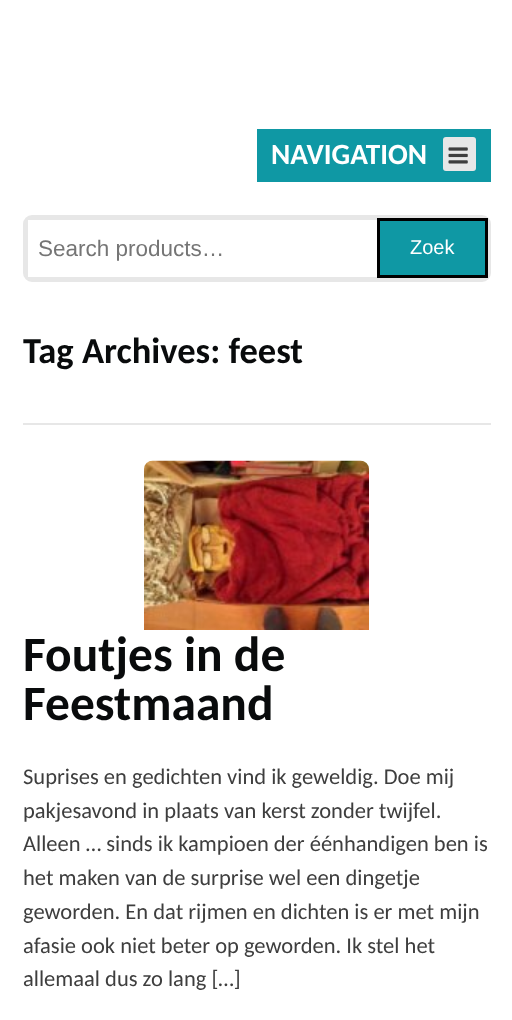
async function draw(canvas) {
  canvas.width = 512
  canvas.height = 1020
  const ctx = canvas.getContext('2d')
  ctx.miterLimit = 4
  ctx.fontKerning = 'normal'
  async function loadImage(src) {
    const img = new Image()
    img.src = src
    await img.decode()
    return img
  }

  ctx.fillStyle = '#fff'
  ctx.fillRect(0, 0, 512, 1020)
  ctx.fillStyle = '#0f98a4'
  ctx.fillRect(257, 129, 234, 53)
  ctx.font = 'bold 29.25px Carlito'
  ctx.fillStyle = '#fff'
  ctx.fillText('NAVIGATION', 271, 164)
  ctx.fillStyle = '#e7e7e7'
  ctx.beginPath()
  ctx.roundRect(443, 137, 33, 34, 3)
  ctx.fill()
  ctx.drawImage(await loadImage('image0.png'), 448, 147, 20, 17)
  ctx.beginPath()
  ctx.roundRect(24.5, 216.5, 465, 64, 7.5)
  ctx.strokeStyle = '#e7e7e7'
  ctx.lineWidth = 3
  ctx.stroke()
  ctx.lineWidth = 2
  ctx.strokeRect(27, 219, 460, 59)
  ctx.font = '22.5px Liberation Sans'
  ctx.fillStyle = '#757575'
  ctx.fillText('Search products…', 38, 256)
  ctx.fillStyle = '#0f98a4'
  ctx.beginPath()
  ctx.rect(378.5, 219.5, 108, 57)
  ctx.fill()
  ctx.strokeStyle = '#000'
  ctx.lineWidth = 3
  ctx.stroke()
  ctx.font = '20px Liberation Sans'
  ctx.fillStyle = '#fff'
  ctx.fillText('Zoek', 410, 254)
  ctx.fillStyle = '#e7e7e7'
  ctx.fillRect(23, 423, 468, 2)
  ctx.font = 'bold 36.5px Carlito'
  ctx.fillStyle = '#090b0c'
  ctx.fillText('Tag Archives: feest', 23, 363)
  ctx.drawImage(await loadImage('image1.png'), 144, 460, 225, 170)
  ctx.font = 'bold 49.5px Carlito'
  ctx.fillText('Foutjes in de', 23, 671)
  ctx.fillText('Feestmaand', 23, 720)
  ctx.font = '22.5px Carlito'
  ctx.fillStyle = '#3e3e3e'
  ctx.fillText('Suprises en gedichten vind ik geweldig. Doe mij', 23, 784)
  ctx.fillText('pakjesavond in plaats van kerst zonder twijfel.', 23, 818)
  ctx.fillText('Alleen … sinds ik kampioen der éénhandigen ben is', 23, 851)
  ctx.fillText('het maken van de surprise wel een dingetje', 23, 885)
  ctx.fillText('geworden. En dat rijmen en dichten is er met mijn', 23, 919)
  ctx.fillText('afasie ook niet beter op geworden. Ik stel het', 23, 953)
  ctx.fillText('allemaal dus zo lang […]', 23, 986)
}

draw(document.querySelector('canvas'))
